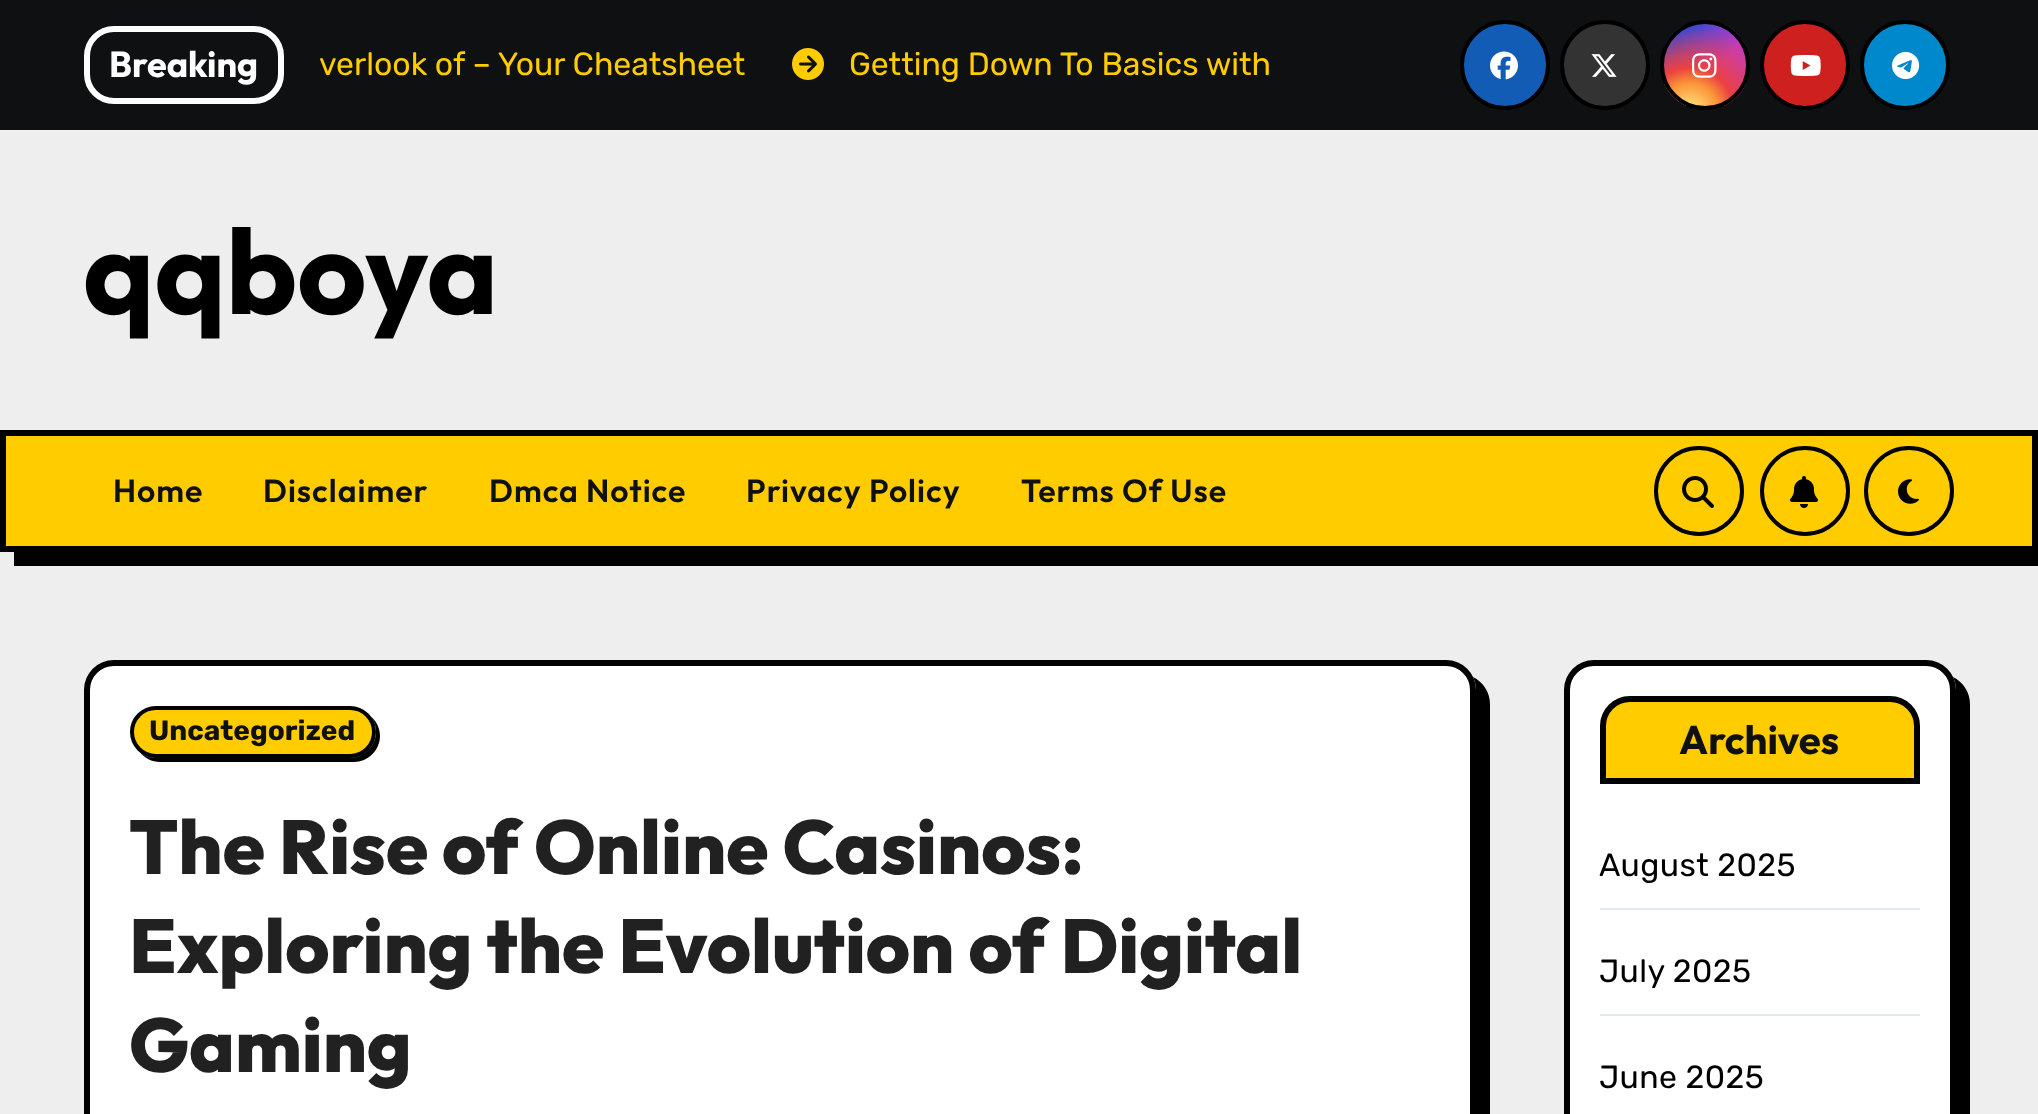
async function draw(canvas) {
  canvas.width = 2038
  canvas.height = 1114
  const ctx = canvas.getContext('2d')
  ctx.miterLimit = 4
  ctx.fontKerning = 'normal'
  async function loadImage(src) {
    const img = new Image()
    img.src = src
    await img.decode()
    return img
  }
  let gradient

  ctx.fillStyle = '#eee'
  ctx.fillRect(0, 0, 2038, 1114)
  ctx.fillStyle = '#0f1012'
  ctx.fillRect(0, 0, 2038, 130)
  ctx.beginPath()
  ctx.roundRect(87, 29, 194, 72, 27)
  ctx.strokeStyle = '#fff'
  ctx.lineWidth = 6
  ctx.stroke()
  ctx.font = 'bold 36px Outfit'
  ctx.fillStyle = '#fff'
  ctx.fillText('Breaking', 109, 77)
  ctx.font = '300 32px Rubik'
  ctx.fillStyle = '#fc0'
  ctx.fillText('verlook of – Your Cheatsheet', 319, 75)
  ctx.drawImage(await loadImage('image0.png'), 792, 48, 32, 32)
  ctx.fillText('Getting Down To Basics with', 849, 75)
  ctx.fillStyle = '#135cb6'
  ctx.beginPath()
  ctx.arc(1505, 65, 43, 0, 2 * Math.PI)
  ctx.fill()
  ctx.strokeStyle = '#000'
  ctx.lineWidth = 4
  ctx.stroke()
  ctx.drawImage(await loadImage('image1.png'), 1490, 51, 28, 29)
  ctx.fillStyle = '#333'
  ctx.beginPath()
  ctx.arc(1605, 65, 43, 0, 2 * Math.PI)
  ctx.fill()
  ctx.stroke()
  ctx.drawImage(await loadImage('image2.png'), 1591, 54, 26, 23)
  ctx.save()
  ctx.beginPath()
  ctx.roundRect(1660, 20, 90, 90, 45)
  ctx.clip()
  gradient = ctx.createLinearGradient(1664, 24, 1746, 106)
  gradient.addColorStop(0.12, '#234bd7')
  gradient.addColorStop(0.58, '#c33cbe')
  ctx.fillStyle = gradient
  ctx.fillRect(1664, 24, 82, 82)
  gradient = ctx.createRadialGradient(1690, 111, 0, 1690, 111, 103)
  gradient.addColorStop(0, '#ffe17d')
  gradient.addColorStop(0.1, '#ffcd69')
  gradient.addColorStop(0.28, '#fa9137')
  gradient.addColorStop(0.42, '#eb4141')
  gradient.addColorStop(0.82, '#eb414100')
  ctx.fillStyle = gradient
  ctx.fillRect(1664, 27, 82, 79)
  ctx.restore()
  ctx.beginPath()
  ctx.arc(1705, 65, 43, 0, 2 * Math.PI)
  ctx.stroke()
  ctx.drawImage(await loadImage('image3.png'), 1692, 53, 25, 25)
  ctx.fillStyle = '#cd201f'
  ctx.beginPath()
  ctx.arc(1805, 65, 43, 0, 2 * Math.PI)
  ctx.fill()
  ctx.stroke()
  ctx.drawImage(await loadImage('image4.png'), 1790, 55, 31, 21)
  ctx.fillStyle = '#08c'
  ctx.beginPath()
  ctx.arc(1905, 65, 43, 0, 2 * Math.PI)
  ctx.fill()
  ctx.stroke()
  ctx.drawImage(await loadImage('image5.png'), 1892, 51, 28, 29)
  ctx.font = 'bold 120px Outfit'
  ctx.fillStyle = '#000'
  ctx.fillText('qqboya', 83, 314)
  ctx.beginPath()
  ctx.moveTo(14, 552)
  ctx.lineTo(14, 566)
  ctx.lineTo(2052, 566)
  ctx.lineTo(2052, 444)
  ctx.lineTo(2038, 444)
  ctx.lineTo(2038, 552)
  ctx.closePath()
  ctx.fill()
  ctx.fillStyle = '#fc0'
  ctx.beginPath()
  ctx.rect(3, 433, 2032, 116)
  ctx.fill()
  ctx.lineWidth = 6
  ctx.stroke()
  ctx.letterSpacing = '1px'
  ctx.font = '600 32px Outfit'
  ctx.fillStyle = '#0f1012'
  ctx.fillText('Home', 113, 502)
  ctx.fillText('Disclaimer', 263, 502)
  ctx.fillText('Dmca Notice', 489, 502)
  ctx.fillText('Privacy Policy', 746, 502)
  ctx.fillText('Terms Of Use', 1021, 502)
  ctx.beginPath()
  ctx.arc(1699, 491, 43, 0, 2 * Math.PI)
  ctx.lineWidth = 4
  ctx.stroke()
  ctx.drawImage(await loadImage('image6.png'), 1682, 476, 32, 32)
  ctx.beginPath()
  ctx.arc(1805, 491, 43, 0, 2 * Math.PI)
  ctx.stroke()
  ctx.drawImage(await loadImage('image7.png'), 1790, 476, 28, 32)
  ctx.beginPath()
  ctx.arc(1909, 491, 43, 0, 2 * Math.PI)
  ctx.stroke()
  ctx.drawImage(await loadImage('image8.png'), 1898, 479, 21, 25)
  ctx.fillStyle = '#000'
  ctx.beginPath()
  ctx.moveTo(101, 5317)
  ctx.bezierCurveTo(106, 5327, 116, 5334, 128, 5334)
  ctx.lineTo(1460, 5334)
  ctx.bezierCurveTo(1477, 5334, 1490, 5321, 1490, 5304)
  ctx.lineTo(1490, 704)
  ctx.bezierCurveTo(1490, 692, 1483, 682, 1473, 677)
  ctx.bezierCurveTo(1475, 681, 1476, 685, 1476, 690)
  ctx.lineTo(1476, 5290)
  ctx.bezierCurveTo(1476, 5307, 1463, 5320, 1446, 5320)
  ctx.lineTo(114, 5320)
  ctx.bezierCurveTo(109, 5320, 105, 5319, 101, 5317)
  ctx.closePath()
  ctx.fill()
  ctx.fillStyle = '#fff'
  ctx.beginPath()
  ctx.roundRect(87, 663, 1386, 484, 27)
  ctx.fill()
  ctx.lineWidth = 6
  ctx.stroke()
  ctx.fillStyle = '#000'
  ctx.beginPath()
  ctx.moveTo(140, 752)
  ctx.bezierCurveTo(144, 758, 152, 762, 160, 762)
  ctx.lineTo(354, 762)
  ctx.bezierCurveTo(368, 762, 380, 750, 380, 736)
  ctx.bezierCurveTo(380, 728, 376, 720, 370, 716)
  ctx.bezierCurveTo(374, 720, 376, 726, 376, 732)
  ctx.bezierCurveTo(376, 746, 364, 758, 350, 758)
  ctx.lineTo(156, 758)
  ctx.bezierCurveTo(150, 758, 144, 756, 140, 752)
  ctx.closePath()
  ctx.fill()
  ctx.fillStyle = '#fc0'
  ctx.beginPath()
  ctx.roundRect(132, 708, 242, 48, 24)
  ctx.fill()
  ctx.lineWidth = 4
  ctx.stroke()
  ctx.letterSpacing = '0px'
  ctx.font = 'bold 28px Rubik'
  ctx.fillStyle = '#0f1012'
  ctx.fillText('Uncategorized', 149, 740)
  ctx.font = '800 76px Outfit'
  ctx.fillStyle = '#212121'
  ctx.fillText('The Rise of Online Casinos:', 129, 874)
  ctx.fillText('Exploring the Evolution of Digital', 129, 973)
  ctx.fillText('Gaming', 129, 1072)
  ctx.fillStyle = '#000'
  ctx.beginPath()
  ctx.moveTo(1581, 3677)
  ctx.bezierCurveTo(1586, 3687, 1596, 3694, 1608, 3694)
  ctx.lineTo(1940, 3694)
  ctx.bezierCurveTo(1957, 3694, 1970, 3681, 1970, 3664)
  ctx.lineTo(1970, 704)
  ctx.bezierCurveTo(1970, 692, 1963, 682, 1953, 677)
  ctx.bezierCurveTo(1955, 681, 1956, 685, 1956, 690)
  ctx.lineTo(1956, 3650)
  ctx.bezierCurveTo(1956, 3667, 1943, 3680, 1926, 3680)
  ctx.lineTo(1594, 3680)
  ctx.bezierCurveTo(1589, 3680, 1585, 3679, 1581, 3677)
  ctx.closePath()
  ctx.fill()
  ctx.fillStyle = '#fff'
  ctx.beginPath()
  ctx.roundRect(1567, 663, 386, 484, 27)
  ctx.fill()
  ctx.lineWidth = 6
  ctx.stroke()
  ctx.fillStyle = '#fc0'
  ctx.beginPath()
  ctx.roundRect(1603, 699, 314, 82, [27, 27, 0, 0])
  ctx.fill()
  ctx.stroke()
  ctx.font = 'bold 40px Outfit'
  ctx.fillStyle = '#0f1012'
  ctx.fillText('Archives', 1679, 754)
  ctx.fillStyle = '#e2e8f0'
  ctx.fillRect(1600, 908, 320, 2)
  ctx.letterSpacing = '0.4px'
  ctx.font = '300 32px Rubik'
  ctx.fillStyle = '#000'
  ctx.fillText('August 2025', 1599, 876)
  ctx.fillStyle = '#e2e8f0'
  ctx.fillRect(1600, 1014, 320, 2)
  ctx.fillStyle = '#000'
  ctx.fillText('July 2025', 1599, 982)
  ctx.fillText('June 2025', 1599, 1088)
}

draw(document.querySelector('canvas'))
